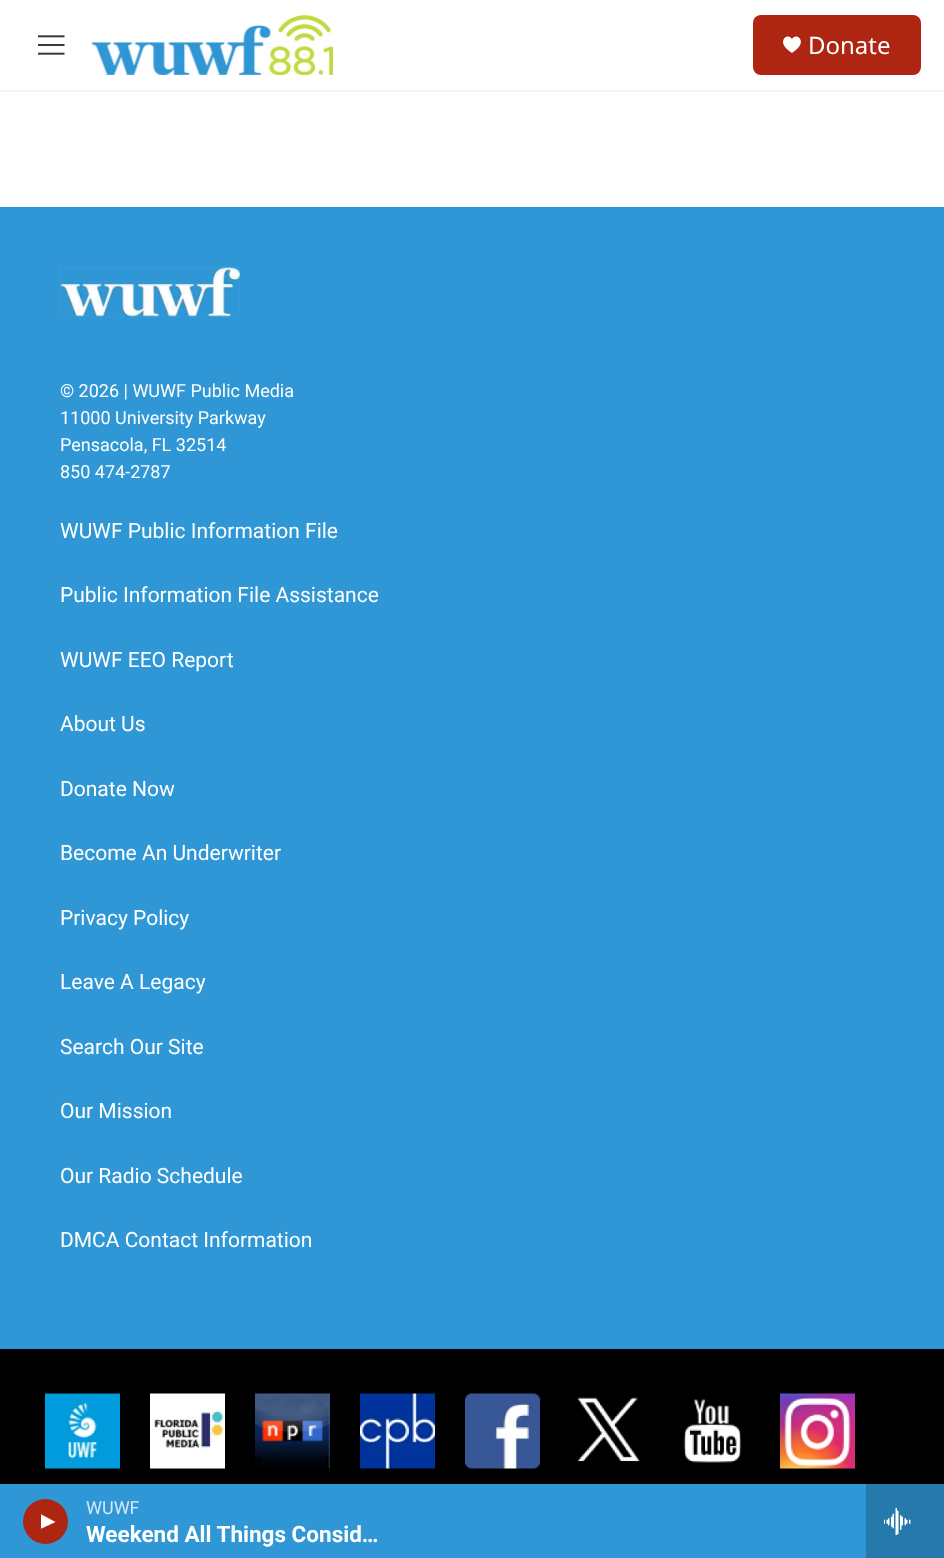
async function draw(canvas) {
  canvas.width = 944
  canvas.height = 1558
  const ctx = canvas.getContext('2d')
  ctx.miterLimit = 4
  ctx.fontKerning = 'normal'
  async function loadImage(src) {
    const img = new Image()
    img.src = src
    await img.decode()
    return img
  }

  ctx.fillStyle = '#fff'
  ctx.fillRect(0, 0, 944, 1558)
  ctx.fillStyle = '#f5f5f5'
  ctx.fillRect(0, 90, 944, 2)
  ctx.drawImage(await loadImage('image0.png'), 38, 35, 27, 20)
  ctx.drawImage(await loadImage('image1.png'), 91, 15, 242, 60)
  ctx.fillStyle = '#ae2512'
  ctx.beginPath()
  ctx.roundRect(753, 15, 168, 60, 8)
  ctx.fill()
  ctx.fillStyle = '#fff'
  ctx.beginPath()
  ctx.moveTo(792, 39.5)
  ctx.bezierCurveTo(789, 31.5, 773.5, 41.5, 792, 53)
  ctx.bezierCurveTo(810.5, 41.5, 795, 31.5, 792, 39.5)
  ctx.closePath()
  ctx.fill()
  ctx.font = '24px Noto Sans'
  ctx.fillText('Donate', 808, 54)
  ctx.fillStyle = '#2f97d6'
  ctx.fillRect(0, 1484, 866, 74)
  ctx.fillStyle = '#ae2512'
  ctx.beginPath()
  ctx.arc(45.5, 1521.5, 22.5, 0, 2 * Math.PI)
  ctx.fill()
  ctx.save()
  ctx.beginPath()
  ctx.rect(41, 1514, 15, 16)
  ctx.clip()
  ctx.fillStyle = '#fff'
  ctx.beginPath()
  ctx.moveTo(40.5, 1514)
  ctx.lineTo(55.5, 1522)
  ctx.lineTo(40.5, 1529)
  ctx.closePath()
  ctx.fill()
  ctx.restore()
  ctx.font = '18px Roboto'
  ctx.fillStyle = '#d5eaf7'
  ctx.fillText('WUWF', 86, 1514)
  ctx.font = 'bold 22.5px Roboto'
  ctx.fillStyle = '#fff'
  ctx.fillText('Weekend All Things Consid…', 86, 1542)
  ctx.fillStyle = '#2679ab'
  ctx.fillRect(866, 1484, 78, 74)
  ctx.drawImage(await loadImage('image2.png'), 884, 1508, 27, 27)
  ctx.fillStyle = '#2f97d6'
  ctx.fillRect(0, 207, 944, 1142)
  ctx.drawImage(await loadImage('image3.png'), 60, 267, 180, 50)
  ctx.font = '18px Roboto'
  ctx.fillStyle = '#fff'
  ctx.fillText('© 2026 | WUWF Public Media', 60, 397)
  ctx.fillText('11000 University Parkway', 60, 424)
  ctx.fillText('Pensacola, FL 32514', 60, 451)
  ctx.fillText('850 474-2787', 60, 478)
  ctx.font = '21px Roboto'
  ctx.fillText('WUWF Public Information File', 60, 538)
  ctx.fillText('Public Information File Assistance', 60, 602)
  ctx.fillText('WUWF EEO Report', 60, 667)
  ctx.fillText('About Us', 60, 731)
  ctx.fillText('Donate Now', 60, 796)
  ctx.fillText('Become An Underwriter', 60, 860)
  ctx.fillText('Privacy Policy', 60, 925)
  ctx.fillText('Leave A Legacy', 60, 989)
  ctx.fillText('Search Our Site', 60, 1054)
  ctx.fillText('Our Mission', 60, 1118)
  ctx.fillText('Our Radio Schedule', 60, 1183)
  ctx.fillText('DMCA Contact Information', 60, 1247)
  ctx.fillStyle = '#000'
  ctx.fillRect(0, 1349, 944, 135)
  ctx.drawImage(await loadImage('image4.png'), 45, 1393, 75, 76)
  ctx.drawImage(await loadImage('image5.png'), 150, 1393, 75, 76)
  ctx.drawImage(await loadImage('image6.png'), 255, 1393, 75, 76)
  ctx.drawImage(await loadImage('image7.png'), 360, 1393, 75, 76)
  ctx.drawImage(await loadImage('image8.png'), 465, 1393, 75, 76)
  ctx.drawImage(await loadImage('image9.png'), 577, 1397, 64, 66)
  ctx.drawImage(await loadImage('image10.png'), 683, 1399, 59, 64)
  ctx.drawImage(await loadImage('image11.png'), 780, 1393, 75, 76)
}

draw(document.querySelector('canvas'))
